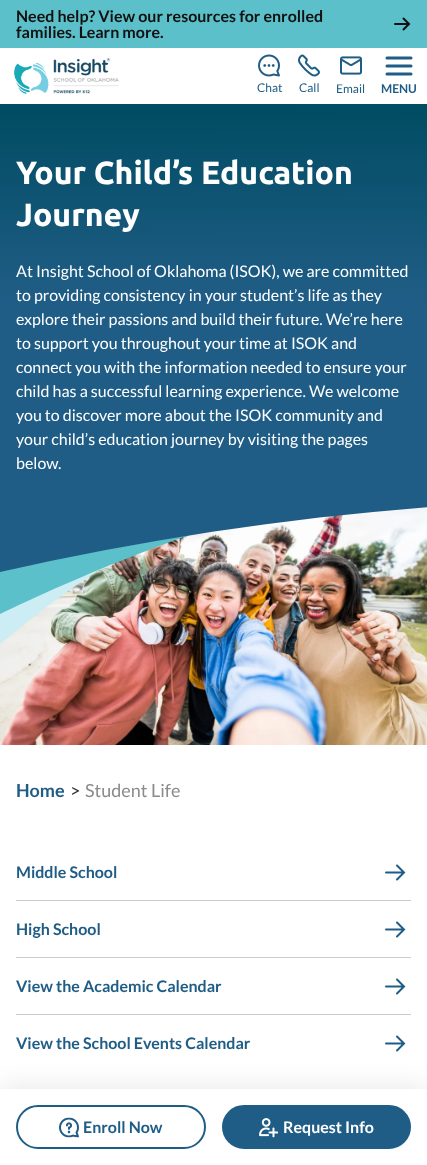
async function draw(canvas) {
  canvas.width = 427
  canvas.height = 1165
  const ctx = canvas.getContext('2d')
  ctx.miterLimit = 4
  ctx.fontKerning = 'normal'
  async function loadImage(src) {
    const img = new Image()
    img.src = src
    await img.decode()
    return img
  }
  let gradient

  ctx.fillStyle = '#fff'
  ctx.fillRect(0, 0, 427, 1165)
  ctx.fillStyle = '#5bc0c9'
  ctx.fillRect(0, 0, 427, 48)
  ctx.font = 'bold 16px Lato'
  ctx.fillStyle = '#111'
  ctx.fillText('Need help? View our resources for enrolled', 16, 22)
  ctx.fillText('families. Learn more.', 16, 38)
  ctx.beginPath()
  ctx.moveTo(403.5, 18.5)
  ctx.lineTo(409, 24)
  ctx.lineTo(403.5, 29.5)
  ctx.moveTo(408.5, 24)
  ctx.lineTo(395, 24)
  ctx.strokeStyle = '#111'
  ctx.lineWidth = 2
  ctx.lineCap = 'round'
  ctx.stroke()
  ctx.drawImage(await loadImage('image0.png'), 14, 58, 105, 37)
  ctx.drawImage(await loadImage('image1.png'), 258, 54, 22, 23)
  ctx.font = '12px Lato'
  ctx.fillStyle = '#205d86'
  ctx.fillText('Chat', 257, 92)
  ctx.drawImage(await loadImage('image2.png'), 298, 54, 22, 23)
  ctx.fillText('Call', 299, 92)
  ctx.drawImage(await loadImage('image3.png'), 340, 56, 22, 19)
  ctx.fillText('Email', 336, 93)
  ctx.beginPath()
  ctx.moveTo(387, 58)
  ctx.lineTo(411, 58)
  ctx.moveTo(387, 66)
  ctx.lineTo(411, 66)
  ctx.moveTo(387, 74)
  ctx.lineTo(411, 74)
  ctx.strokeStyle = '#205d86'
  ctx.lineWidth = 3
  ctx.stroke()
  ctx.font = 'bold 12px Lato'
  ctx.fillText('MENU', 381, 93)
  gradient = ctx.createLinearGradient(213, 104, 214, 499)
  gradient.addColorStop(0, '#004c62')
  gradient.addColorStop(0.5, '#205d86')
  ctx.fillStyle = gradient
  ctx.fillRect(0, 104, 427, 394)
  ctx.font = 'bold 32px Ubuntu'
  ctx.fillStyle = '#fff'
  ctx.fillText('Your Child’s Education', 16, 184)
  ctx.fillText('Journey', 16, 226)
  ctx.font = '16px Lato'
  ctx.fillText('At Insight School of Oklahoma (ISOK), we are committed', 16, 277)
  ctx.fillText('to providing consistency in your student’s life as they', 16, 301)
  ctx.fillText('explore their passions and build their future. We’re here', 16, 325)
  ctx.fillText('to support you throughout your time at ISOK and', 16, 349)
  ctx.fillText('connect you with the information needed to ensure your', 16, 373)
  ctx.fillText('child has a successful learning experience. We welcome', 16, 397)
  ctx.fillText('you to discover more about the ISOK community and', 16, 421)
  ctx.fillText('your child’s education journey by visiting the pages', 16, 445)
  ctx.fillText('below.', 16, 469)
  ctx.drawImage(await loadImage('image4.png'), 0, 507, 427, 238)
  ctx.fillStyle = '#cdedf4'
  ctx.beginPath()
  ctx.moveTo(0, 644)
  ctx.bezierCurveTo(66, 589, 138, 541, 213, 498)
  ctx.lineTo(0, 498)
  ctx.closePath()
  ctx.fill()
  ctx.fillStyle = '#5bc0c9'
  ctx.beginPath()
  ctx.moveTo(0, 614)
  ctx.bezierCurveTo(98, 567, 201, 527, 308, 498)
  ctx.lineTo(0, 498)
  ctx.closePath()
  ctx.moveTo(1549, 498)
  ctx.lineTo(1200, 498)
  ctx.bezierCurveTo(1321, 531, 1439, 577, 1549, 635)
  ctx.closePath()
  ctx.fill('evenodd')
  ctx.fillStyle = '#205d86'
  ctx.beginPath()
  ctx.moveTo(0, 572)
  ctx.bezierCurveTo(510, 456, 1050, 477, 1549, 633)
  ctx.lineTo(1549, 498)
  ctx.lineTo(0, 498)
  ctx.closePath()
  ctx.fill()
  ctx.font = 'bold 18px Lato'
  ctx.fillText('Home', 16, 797)
  ctx.font = '18px Lato'
  ctx.fillStyle = '#333'
  ctx.fillText('>', 70, 797)
  ctx.fillStyle = '#8b8b8b'
  ctx.fillText('Student Life', 85, 797)
  ctx.fillStyle = '#ccc'
  ctx.fillRect(16, 900, 395, 1)
  ctx.font = 'bold 16px Lato'
  ctx.fillStyle = '#205d86'
  ctx.fillText('Middle School', 16, 878)
  ctx.beginPath()
  ctx.moveTo(397, 865.5)
  ctx.lineTo(404, 872.5)
  ctx.lineTo(397, 879.5)
  ctx.moveTo(403.5, 872.5)
  ctx.lineTo(386, 872.5)
  ctx.lineWidth = 2
  ctx.stroke()
  ctx.fillStyle = '#ccc'
  ctx.fillRect(16, 957, 395, 1)
  ctx.fillStyle = '#205d86'
  ctx.fillText('High School', 16, 935)
  ctx.beginPath()
  ctx.moveTo(397, 922.5)
  ctx.lineTo(404, 929.5)
  ctx.lineTo(397, 936.5)
  ctx.moveTo(403.5, 929.5)
  ctx.lineTo(386, 929.5)
  ctx.stroke()
  ctx.fillStyle = '#ccc'
  ctx.fillRect(16, 1014, 395, 1)
  ctx.fillStyle = '#205d86'
  ctx.fillText('View the Academic Calendar', 16, 992)
  ctx.beginPath()
  ctx.moveTo(397, 979.5)
  ctx.lineTo(404, 986.5)
  ctx.lineTo(397, 993.5)
  ctx.moveTo(403.5, 986.5)
  ctx.lineTo(386, 986.5)
  ctx.stroke()
  ctx.fillText('View the School Events Calendar', 16, 1049)
  ctx.beginPath()
  ctx.moveTo(397, 1036.5)
  ctx.lineTo(404, 1043.5)
  ctx.lineTo(397, 1050.5)
  ctx.moveTo(403.5, 1043.5)
  ctx.lineTo(386, 1043.5)
  ctx.stroke()
  ctx.fillStyle = '#00000014'
  ctx.filter = 'blur(12px)'
  ctx.beginPath()
  ctx.rect(0, 1085, 427, 76)
  ctx.fill()
  ctx.filter = 'none'
  ctx.fillStyle = '#fff'
  ctx.fillRect(0, 1089, 427, 76)
  ctx.beginPath()
  ctx.roundRect(17, 1106, 188, 42, 21)
  ctx.stroke()
  ctx.drawImage(await loadImage('image5.png'), 59, 1117, 20, 21)
  ctx.fillStyle = '#205d86'
  ctx.fillText('Enroll Now', 83, 1133)
  ctx.beginPath()
  ctx.roundRect(223, 1106, 187, 42, 21)
  ctx.fill()
  ctx.stroke()
  ctx.drawImage(await loadImage('image6.png'), 259, 1118, 19, 20)
  ctx.fillStyle = '#fff'
  ctx.fillText('Request Info', 283, 1133)
}

draw(document.querySelector('canvas'))
